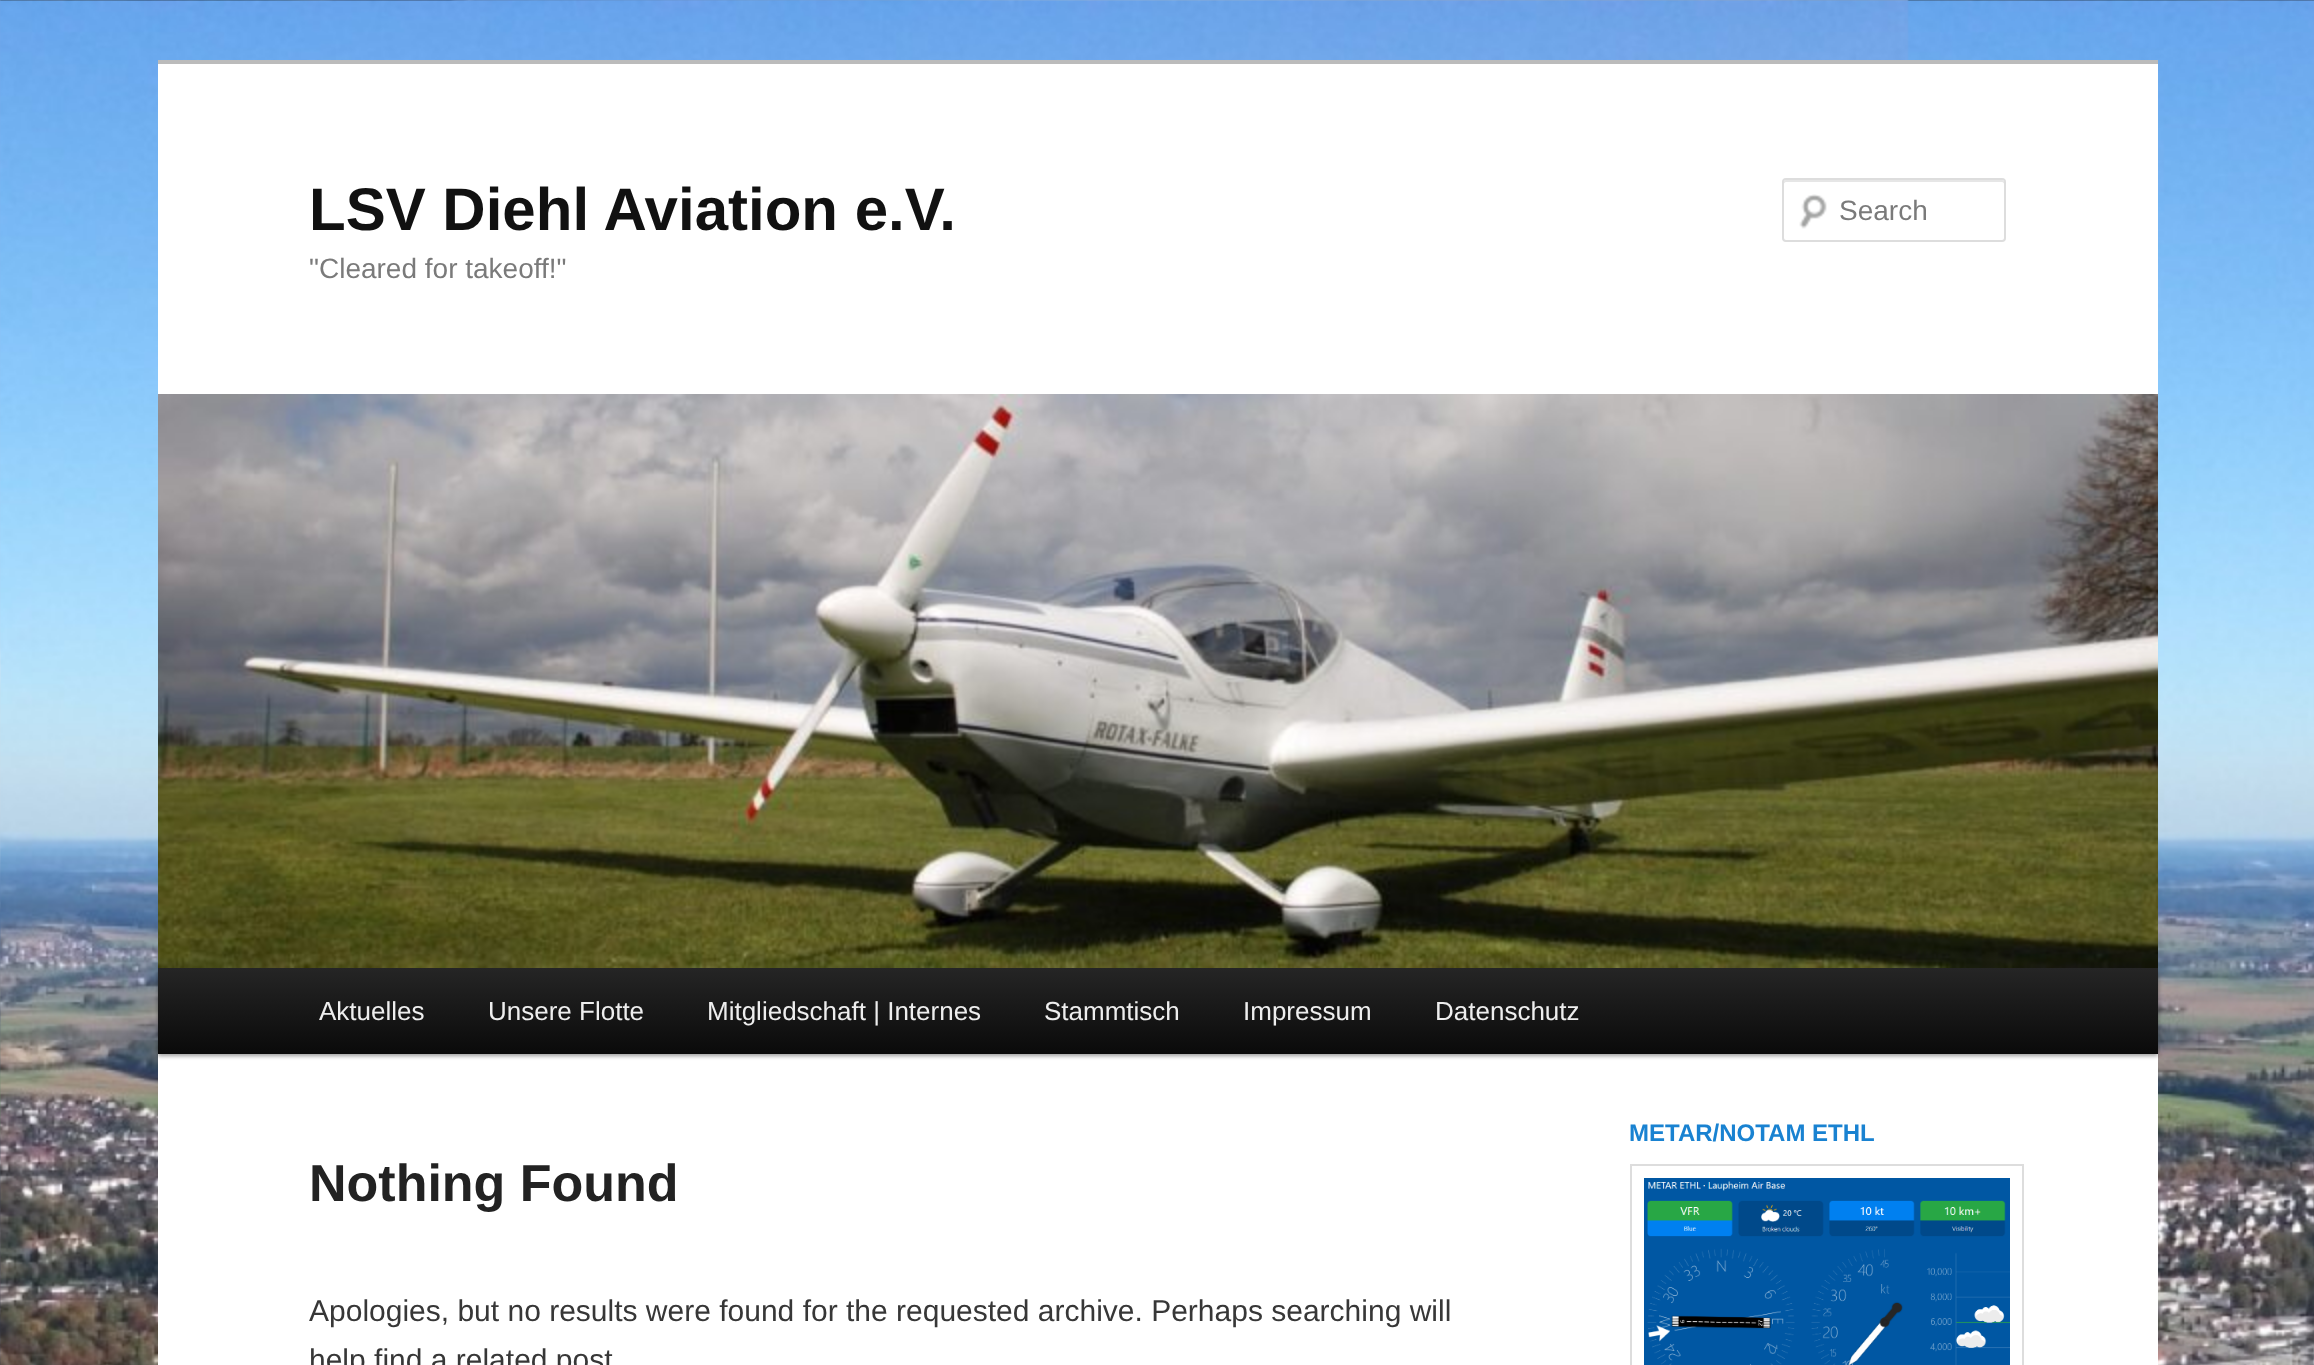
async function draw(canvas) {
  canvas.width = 2314
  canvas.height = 1365
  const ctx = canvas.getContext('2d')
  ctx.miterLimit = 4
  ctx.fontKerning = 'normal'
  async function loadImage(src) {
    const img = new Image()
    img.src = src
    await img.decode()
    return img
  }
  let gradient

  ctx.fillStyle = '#fff'
  ctx.fillRect(0, 0, 2314, 1365)
  ctx.drawImage(await loadImage('image0.png'), 0, 0, 2314, 1365)
  ctx.fillRect(158, 64, 2000, 1301)
  ctx.fillStyle = '#bbb'
  ctx.fillRect(158, 60, 2000, 4)
  ctx.font = 'bold 60px Liberation Sans'
  ctx.fillStyle = '#111'
  ctx.fillText('LSV Diehl Aviation e.V.', 309, 230)
  ctx.font = '28px Liberation Sans'
  ctx.fillStyle = '#7a7a7a'
  ctx.fillText('"Cleared for takeoff!"', 309, 278)
  ctx.drawImage(await loadImage('image1.png'), 1799, 194, 28, 35)
  ctx.fillStyle = '#e6e6e6'
  ctx.beginPath()
  ctx.moveTo(1786, 182)
  ctx.lineTo(2002, 182)
  ctx.bezierCurveTo(2003, 182, 2004, 183, 2004, 184)
  ctx.lineTo(2004, 182)
  ctx.bezierCurveTo(2004, 181, 2003, 180, 2002, 180)
  ctx.lineTo(1786, 180)
  ctx.bezierCurveTo(1785, 180, 1784, 181, 1784, 182)
  ctx.lineTo(1784, 184)
  ctx.bezierCurveTo(1784, 183, 1785, 182, 1786, 182)
  ctx.closePath()
  ctx.fill()
  ctx.beginPath()
  ctx.roundRect(1783, 179, 222, 62, 3)
  ctx.strokeStyle = '#ddd'
  ctx.lineWidth = 2
  ctx.stroke()
  ctx.fillStyle = '#7a7a7a'
  ctx.fillText('Search', 1839, 220)
  ctx.fillStyle = '#00000066'
  ctx.filter = 'blur(2px)'
  ctx.beginPath()
  ctx.rect(158, 970, 2000, 86)
  ctx.fill()
  ctx.filter = 'none'
  ctx.drawImage(await loadImage('image2.png'), 158, 394, 2000, 574)
  gradient = ctx.createLinearGradient(1158, 968, 1158, 1054)
  gradient.addColorStop(0, '#252525')
  gradient.addColorStop(1, '#0a0a0a')
  ctx.fillStyle = gradient
  ctx.fillRect(158, 968, 2000, 86)
  ctx.font = '26px Liberation Sans'
  ctx.fillStyle = '#eee'
  ctx.fillText('Aktuelles', 319, 1020)
  ctx.fillText('Unsere Flotte', 488, 1020)
  ctx.fillText('Mitgliedschaft | Internes', 707, 1020)
  ctx.fillText('Stammtisch', 1044, 1020)
  ctx.fillText('Impressum', 1243, 1020)
  ctx.fillText('Datenschutz', 1435, 1020)
  ctx.font = 'bold 24px Liberation Sans'
  ctx.fillStyle = '#1982d1'
  ctx.fillText('METAR/NOTAM ETHL', 1629, 1141)
  ctx.strokeRect(1631, 1165, 392, 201)
  ctx.drawImage(await loadImage('image3.png'), 1644, 1178, 366, 187)
  ctx.font = 'bold 52px Liberation Sans'
  ctx.fillStyle = '#222'
  ctx.fillText('Nothing Found', 309, 1201)
  ctx.font = '30px Liberation Sans'
  ctx.fillStyle = '#373737'
  ctx.fillText('Apologies, but no results were found for the requested archive. Perhaps searching will', 309, 1321)
  ctx.fillText('help find a related post', 309, 1370)
}

draw(document.querySelector('canvas'))
